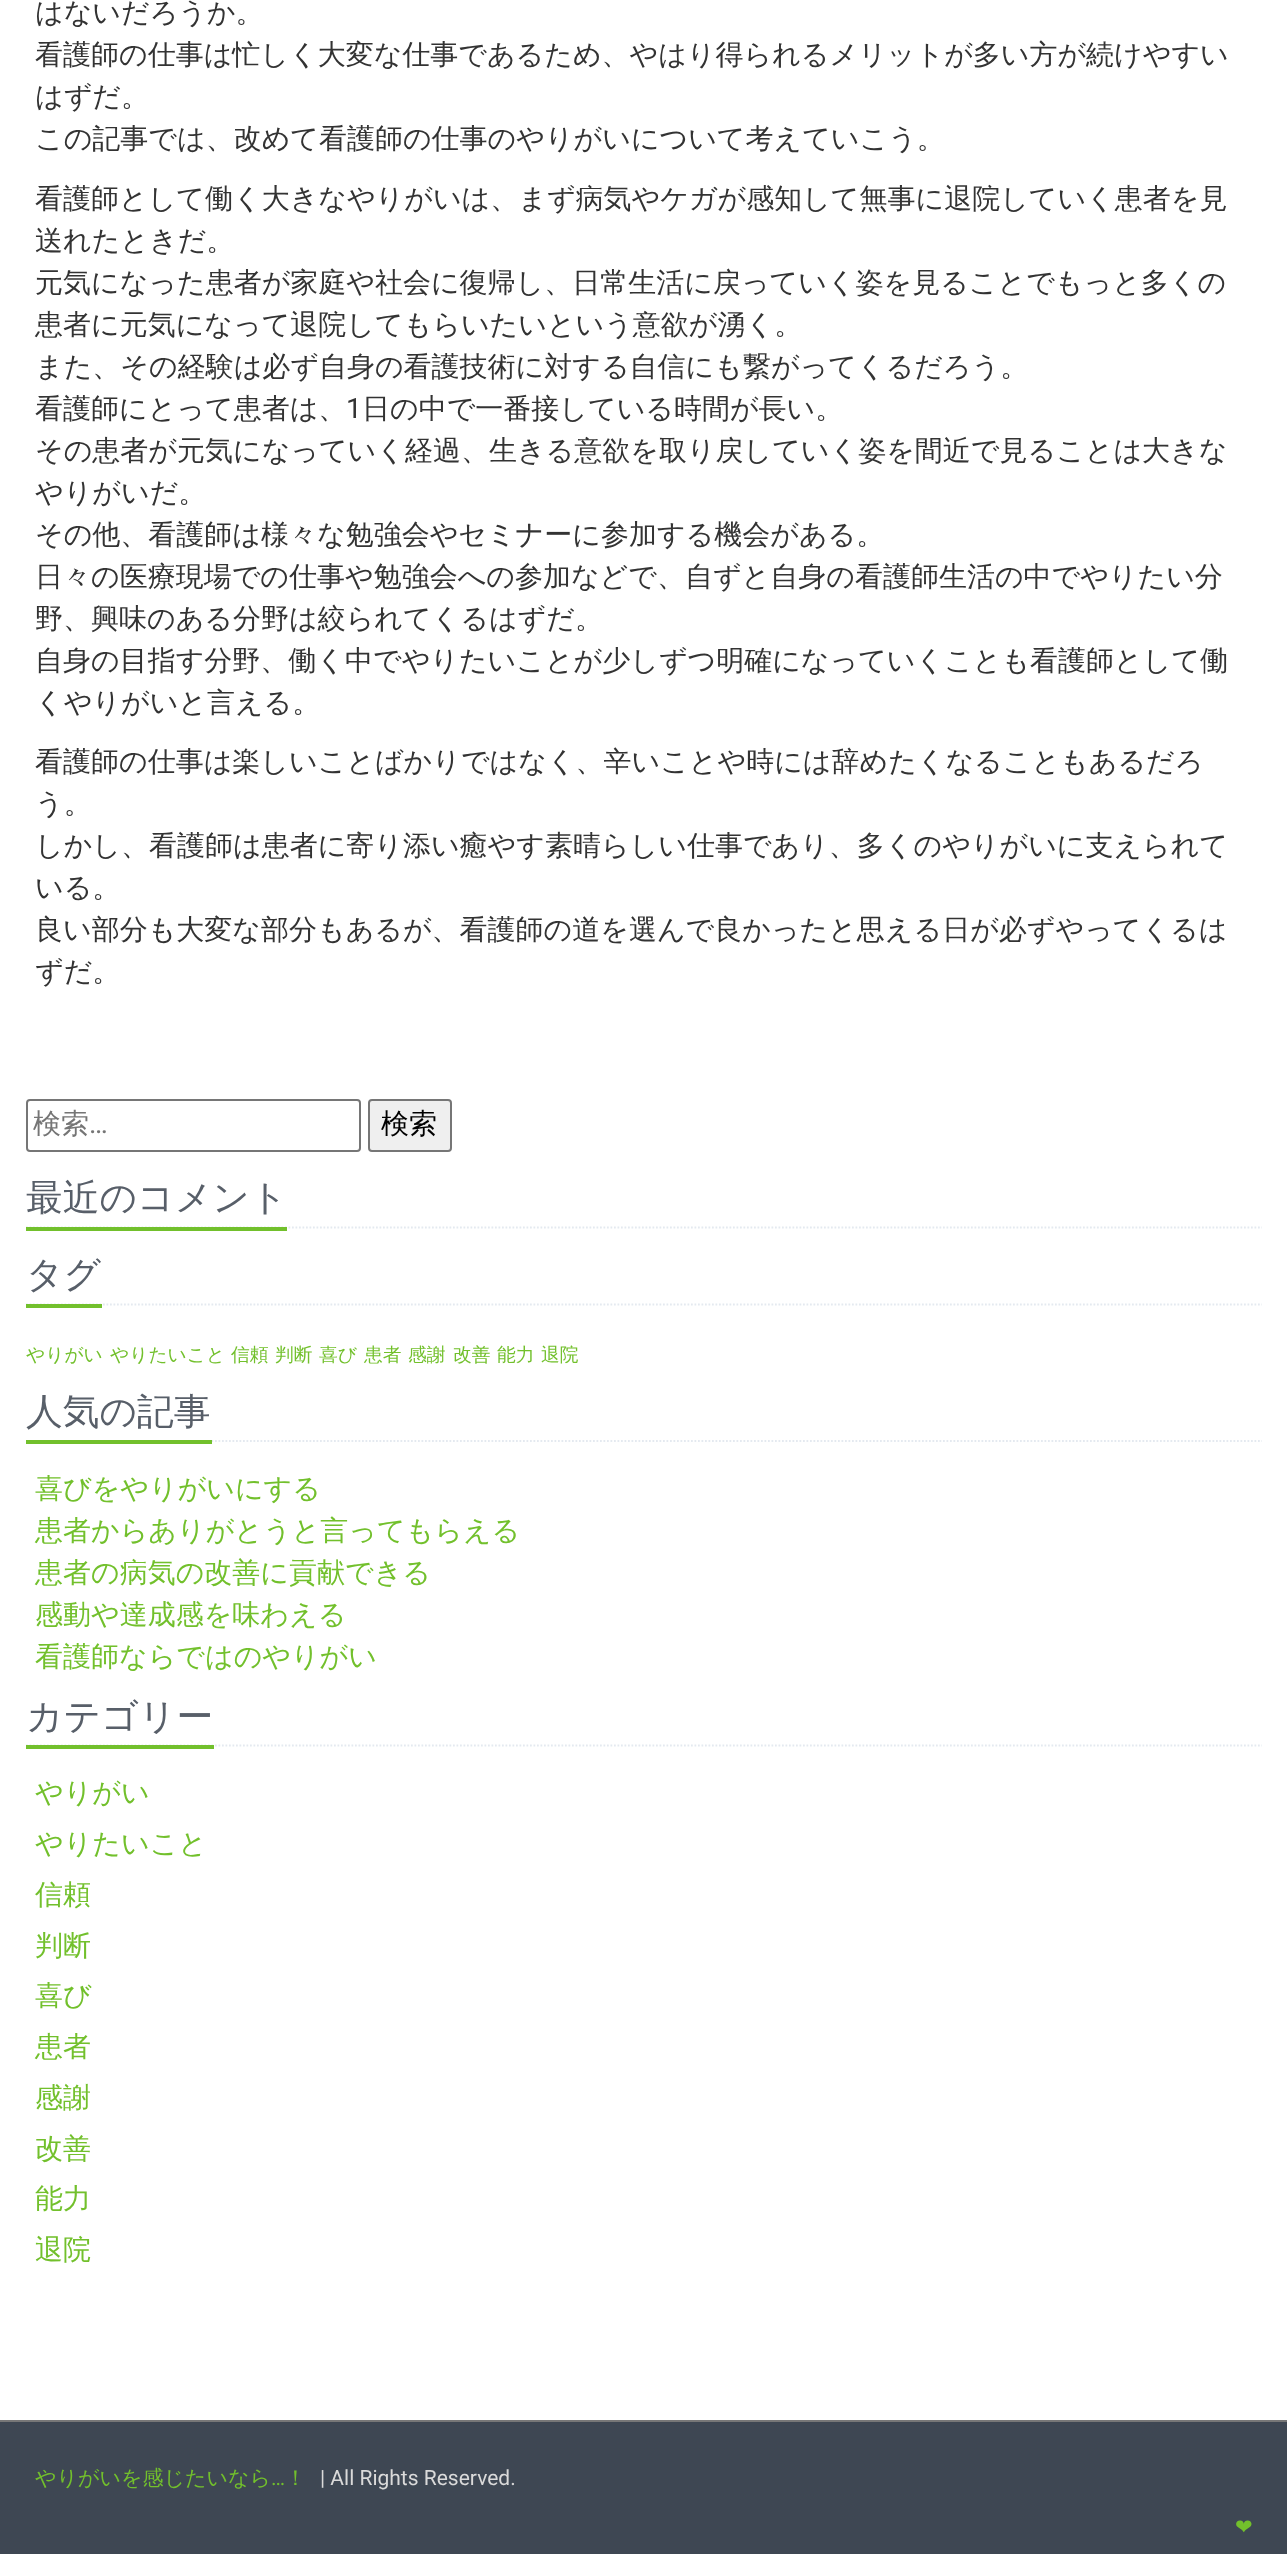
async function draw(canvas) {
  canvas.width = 1287
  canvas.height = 2554
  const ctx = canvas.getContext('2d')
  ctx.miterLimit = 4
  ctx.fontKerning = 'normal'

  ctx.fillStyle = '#fff'
  ctx.fillRect(0, 0, 1287, 2554)
  ctx.font = '500 28px WenQuanYi Zen Hei'
  ctx.fillStyle = '#333'
  ctx.fillText('はないだろうか。', 35, 22)
  ctx.fillText('看護師の仕事は忙しく大変な仕事であるため、やはり得られるメリットが多い方が続けやすい', 35, 64)
  ctx.fillText('はずだ。', 35, 106)
  ctx.fillText('この記事では、改めて看護師の仕事のやりがいについて考えていこう。', 35, 148)
  ctx.fillText('看護師として働く大きなやりがいは、まず病気やケガが感知して無事に退院していく患者を見', 35, 208)
  ctx.fillText('送れたときだ。', 35, 250)
  ctx.fillText('元気になった患者が家庭や社会に復帰し、日常生活に戻っていく姿を見ることでもっと多くの', 35, 292)
  ctx.fillText('患者に元気になって退院してもらいたいという意欲が湧く。', 35, 334)
  ctx.fillText('また、その経験は必ず自身の看護技術に対する自信にも繋がってくるだろう。', 35, 376)
  ctx.fillText('看護師にとって患者は、', 35, 418)
  ctx.font = '28px Roboto'
  ctx.fillText('1', 346, 418)
  ctx.font = '500 28px WenQuanYi Zen Hei'
  ctx.fillText('日の中で一番接している時間が長い。', 362, 418)
  ctx.fillText('その患者が元気になっていく経過、生きる意欲を取り戻していく姿を間近で見ることは大きな', 35, 460)
  ctx.fillText('やりがいだ。', 35, 502)
  ctx.fillText('その他、看護師は様々な勉強会やセミナーに参加する機会がある。', 35, 544)
  ctx.fillText('日々の医療現場での仕事や勉強会への参加などで、自ずと自身の看護師生活の中でやりたい分', 35, 586)
  ctx.fillText('野、興味のある分野は絞られてくるはずだ。', 35, 628)
  ctx.fillText('自身の目指す分野、働く中でやりたいことが少しずつ明確になっていくことも看護師として働', 35, 670)
  ctx.fillText('くやりがいと言える。', 35, 712)
  ctx.fillText('看護師の仕事は楽しいことばかりではなく、辛いことや時には辞めたくなることもあるだろ', 35, 771)
  ctx.fillText('う。', 35, 813)
  ctx.fillText('しかし、看護師は患者に寄り添い癒やす素晴らしい仕事であり、多くのやりがいに支えられて', 35, 855)
  ctx.fillText('いる。', 35, 897)
  ctx.fillText('良い部分も大変な部分もあるが、看護師の道を選んで良かったと思える日が必ずやってくるは', 35, 939)
  ctx.fillText('ずだ。', 35, 981)
  ctx.beginPath()
  ctx.roundRect(27, 1100, 333, 51, 3)
  ctx.strokeStyle = '#767676'
  ctx.lineWidth = 2
  ctx.stroke()
  ctx.fillStyle = '#757575'
  ctx.fillText('検索', 33, 1133)
  ctx.font = '28px Roboto'
  ctx.fillText('…', 89, 1133)
  ctx.fillStyle = '#efefef'
  ctx.beginPath()
  ctx.roundRect(369, 1100, 82, 51, 3)
  ctx.fill()
  ctx.stroke()
  ctx.font = '500 28px WenQuanYi Zen Hei'
  ctx.fillStyle = '#000'
  ctx.fillText('検索', 381, 1133)
  ctx.beginPath()
  ctx.moveTo(26, 1227.5)
  ctx.lineTo(1262, 1227.5)
  ctx.strokeStyle = '#e4e9f0'
  ctx.lineWidth = 1.8
  ctx.setLineDash([1.75, 1.75])
  ctx.stroke()
  ctx.fillStyle = '#72c02c'
  ctx.fillRect(26, 1227, 261, 4)
  ctx.font = '500 36.75px WenQuanYi Zen Hei'
  ctx.fillStyle = '#585f69'
  ctx.fillText('最近のコメント', 26, 1210)
  ctx.beginPath()
  ctx.moveTo(26, 1304.5)
  ctx.lineTo(1262, 1304.5)
  ctx.stroke()
  ctx.fillStyle = '#72c02c'
  ctx.fillRect(26, 1304, 76, 4)
  ctx.fillStyle = '#585f69'
  ctx.fillText('タグ', 26, 1287)
  ctx.font = '500 18.75px WenQuanYi Zen Hei'
  ctx.fillStyle = '#72c02c'
  ctx.fillText('やりがい', 26, 1361)
  ctx.fillText('やりたいこと', 110, 1361)
  ctx.fillText('信頼', 231, 1361)
  ctx.fillText('判断', 275, 1361)
  ctx.fillText('喜び', 319, 1361)
  ctx.fillText('患者', 364, 1361)
  ctx.fillText('感謝', 408, 1361)
  ctx.fillText('改善', 453, 1361)
  ctx.fillText('能力', 497, 1361)
  ctx.fillText('退院', 541, 1361)
  ctx.beginPath()
  ctx.moveTo(26, 1441)
  ctx.lineTo(1262, 1441)
  ctx.stroke()
  ctx.fillRect(26, 1440, 186, 4)
  ctx.font = '500 36.75px WenQuanYi Zen Hei'
  ctx.fillStyle = '#585f69'
  ctx.fillText('人気の記事', 26, 1424)
  ctx.font = '500 28px WenQuanYi Zen Hei'
  ctx.fillStyle = '#72c02c'
  ctx.fillText('喜びをやりがいにする', 35, 1498)
  ctx.fillText('患者からありがとうと言ってもらえる', 35, 1540)
  ctx.fillText('患者の病気の改善に貢献できる', 35, 1582)
  ctx.fillText('感動や達成感を味わえる', 35, 1624)
  ctx.fillText('看護師ならではのやりがい', 35, 1666)
  ctx.beginPath()
  ctx.moveTo(26, 1745.5)
  ctx.lineTo(1262, 1745.5)
  ctx.stroke()
  ctx.fillRect(26, 1745, 188, 4)
  ctx.font = '500 36.75px WenQuanYi Zen Hei'
  ctx.fillStyle = '#585f69'
  ctx.fillText('カテゴリー', 26, 1729)
  ctx.font = '500 28px WenQuanYi Zen Hei'
  ctx.fillStyle = '#72c02c'
  ctx.fillText('やりがい', 35, 1802)
  ctx.fillText('やりたいこと', 35, 1853)
  ctx.fillText('信頼', 35, 1904)
  ctx.fillText('判断', 35, 1955)
  ctx.fillText('喜び', 35, 2005)
  ctx.fillText('患者', 35, 2056)
  ctx.fillText('感謝', 35, 2107)
  ctx.fillText('改善', 35, 2158)
  ctx.fillText('能力', 35, 2208)
  ctx.fillText('退院', 35, 2259)
  ctx.fillStyle = '#3e4753'
  ctx.fillRect(0, 2422, 1287, 132)
  ctx.fillStyle = '#777'
  ctx.fillRect(0, 2420, 1287, 2)
  ctx.font = '500 21px WenQuanYi Zen Hei'
  ctx.fillStyle = '#72c02c'
  ctx.fillText('やりがいを感じたいなら', 35, 2485)
  ctx.font = '21px Roboto'
  ctx.fillText('…', 271, 2485)
  ctx.font = '500 21px WenQuanYi Zen Hei'
  ctx.fillText('！', 285, 2485)
  ctx.font = '21px Roboto'
  ctx.fillStyle = '#dadada'
  ctx.fillText('| All Rights Reserved.', 320, 2485)
  ctx.font = '21px DejaVu Sans'
  ctx.fillStyle = '#72c02c'
  ctx.fillText('❤', 1235, 2534)
}

draw(document.querySelector('canvas'))
